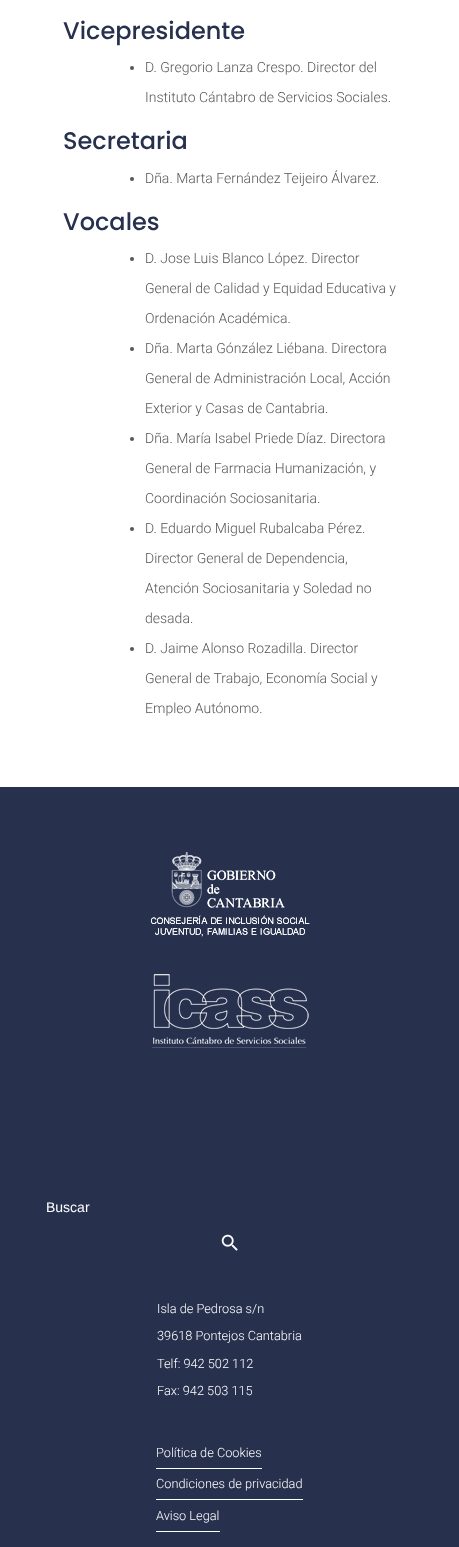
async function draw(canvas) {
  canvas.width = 459
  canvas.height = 1547
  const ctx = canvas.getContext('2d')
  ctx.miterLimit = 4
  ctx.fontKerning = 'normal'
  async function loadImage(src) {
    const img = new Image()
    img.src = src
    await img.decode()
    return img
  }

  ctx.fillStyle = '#fff'
  ctx.fillRect(0, 0, 459, 1547)
  ctx.font = '500 24px Poppins'
  ctx.fillStyle = '#27314e'
  ctx.fillText('Vicepresidente', 63, 39)
  ctx.fillStyle = '#565656'
  ctx.beginPath()
  ctx.arc(132, 68, 2, 0, 2 * Math.PI)
  ctx.fill()
  ctx.font = '300 14px Roboto'
  ctx.fillText('D. Gregorio Lanza Crespo. Director del', 145, 72)
  ctx.fillText('Instituto Cántabro de Servicios Sociales.', 145, 102)
  ctx.font = '500 24px Poppins'
  ctx.fillStyle = '#27314e'
  ctx.fillText('Secretaria', 63, 149)
  ctx.fillStyle = '#565656'
  ctx.beginPath()
  ctx.arc(132, 179, 2, 0, 2 * Math.PI)
  ctx.fill()
  ctx.font = '300 14px Roboto'
  ctx.fillText('Dña. Marta Fernández Teijeiro Álvarez.', 145, 183)
  ctx.font = '500 24px Poppins'
  ctx.fillStyle = '#27314e'
  ctx.fillText('Vocales', 63, 230)
  ctx.fillStyle = '#565656'
  ctx.beginPath()
  ctx.arc(132, 259, 2, 0, 2 * Math.PI)
  ctx.fill()
  ctx.font = '300 14px Roboto'
  ctx.fillText('D. Jose Luis Blanco López. Director', 145, 263)
  ctx.fillText('General de Calidad y Equidad Educativa y', 145, 293)
  ctx.fillText('Ordenación Académica.', 145, 323)
  ctx.beginPath()
  ctx.arc(132, 349, 2, 0, 2 * Math.PI)
  ctx.fill()
  ctx.fillText('Dña. Marta Gónzález Liébana. Directora', 145, 353)
  ctx.fillText('General de Administración Local, Acción', 145, 383)
  ctx.fillText('Exterior y Casas de Cantabria.', 145, 413)
  ctx.beginPath()
  ctx.arc(132, 439, 2, 0, 2 * Math.PI)
  ctx.fill()
  ctx.fillText('Dña. María Isabel Priede Díaz. Directora', 145, 443)
  ctx.fillText('General de Farmacia Humanización, y', 145, 473)
  ctx.fillText('Coordinación Sociosanitaria.', 145, 503)
  ctx.beginPath()
  ctx.arc(132, 529, 2, 0, 2 * Math.PI)
  ctx.fill()
  ctx.fillText('D. Eduardo Miguel Rubalcaba Pérez.', 145, 533)
  ctx.fillText('Director General de Dependencia,', 145, 563)
  ctx.fillText('Atención Sociosanitaria y Soledad no', 145, 593)
  ctx.fillText('desada.', 145, 623)
  ctx.beginPath()
  ctx.arc(132, 649, 2, 0, 2 * Math.PI)
  ctx.fill()
  ctx.fillText('D. Jaime Alonso Rozadilla. Director', 145, 653)
  ctx.fillText('General de Trabajo, Economía Social y', 145, 683)
  ctx.fillText('Empleo Autónomo.', 145, 713)
  ctx.fillStyle = '#27314e'
  ctx.fillRect(0, 787, 459, 760)
  ctx.drawImage(await loadImage('image0.png'), 151, 852, 159, 85)
  ctx.drawImage(await loadImage('image1.png'), 152, 974, 157, 74)
  ctx.font = '14px Liberation Sans'
  ctx.fillStyle = '#fff'
  ctx.fillText('Buscar', 46, 1212)
  ctx.drawImage(await loadImage('image2.png'), 221, 1234, 17, 17)
  ctx.font = '300 12.75px Roboto'
  ctx.fillText('Isla de Pedrosa s/n', 157, 1313)
  ctx.fillText('39618 Pontejos Cantabria', 157, 1340)
  ctx.fillText('Telf: 942 502 112', 157, 1368)
  ctx.fillText('Fax: 942 503 115', 157, 1395)
  ctx.fillRect(156, 1468, 106, 1)
  ctx.fillText('Política de Cookies', 156, 1457)
  ctx.fillRect(156, 1499, 147, 1)
  ctx.fillText('Condiciones de privacidad', 156, 1488)
  ctx.fillRect(156, 1531, 64, 1)
  ctx.fillText('Aviso Legal', 156, 1520)
}

draw(document.querySelector('canvas'))
